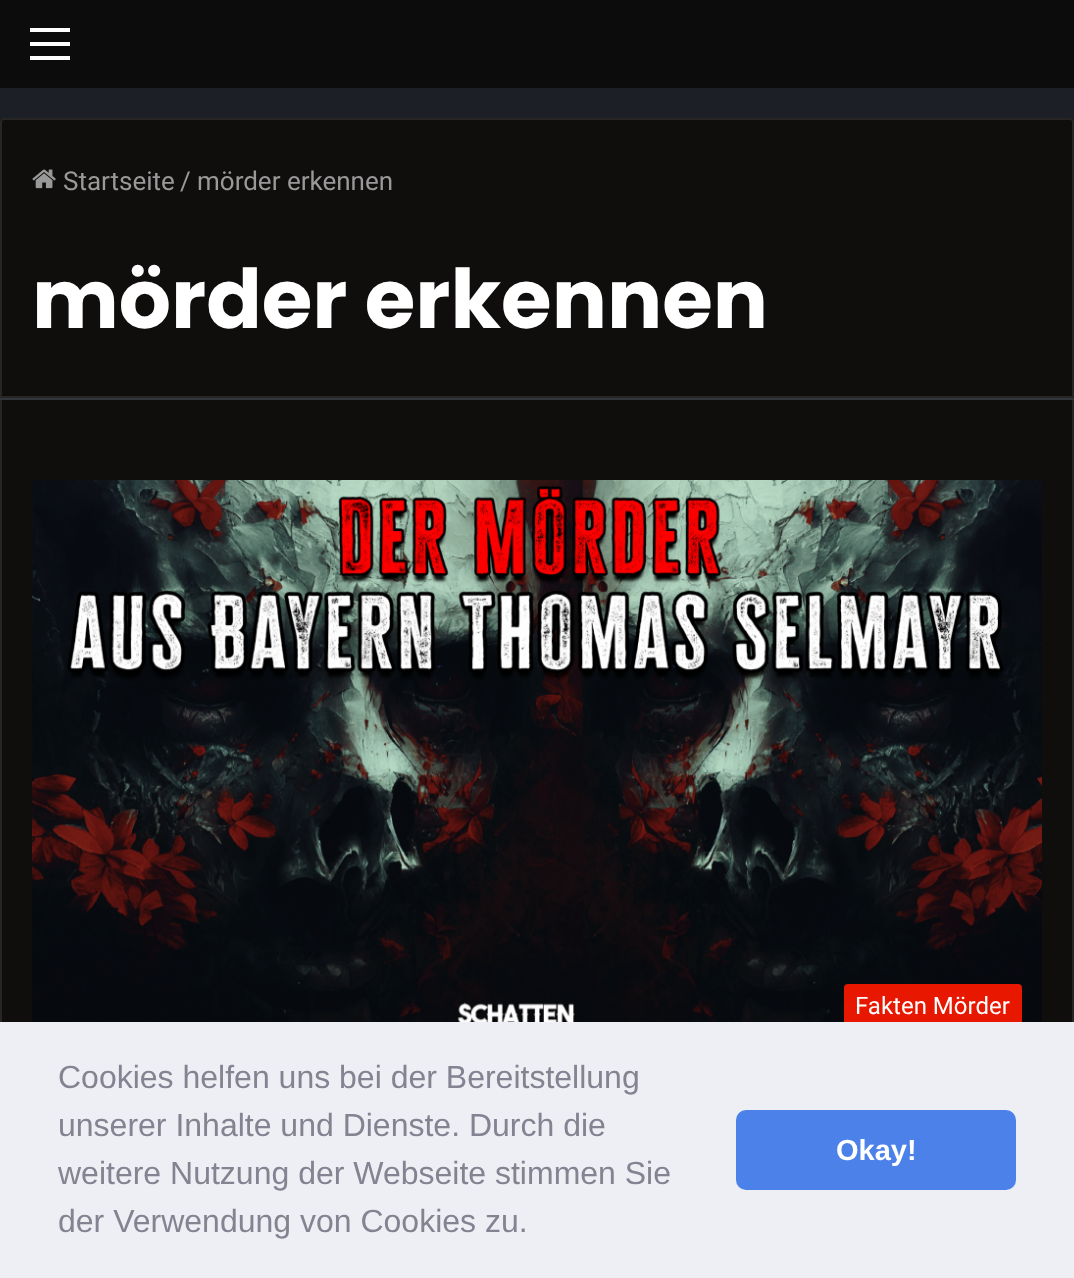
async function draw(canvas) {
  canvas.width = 1074
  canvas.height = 1278
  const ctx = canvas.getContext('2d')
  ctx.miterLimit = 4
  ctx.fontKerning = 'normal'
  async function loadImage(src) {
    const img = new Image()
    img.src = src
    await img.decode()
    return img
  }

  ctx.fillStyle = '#1c1f26'
  ctx.fillRect(0, 0, 1074, 1278)
  ctx.fillStyle = '#0c0c0c'
  ctx.fillRect(0, 0, 1074, 88)
  ctx.fillStyle = '#fff'
  ctx.fillRect(30, 42, 40, 4)
  ctx.fillRect(30, 28, 40, 4)
  ctx.fillRect(30, 56, 40, 4)
  ctx.fillStyle = '#100d0d'
  ctx.beginPath()
  ctx.roundRect(0, 118, 1074, 280, [4, 4, 0, 0])
  ctx.fill()
  ctx.beginPath()
  ctx.roundRect(1, 119, 1072, 278, [3, 3, 0, 0])
  ctx.strokeStyle = '#ffffff1a'
  ctx.lineWidth = 2
  ctx.stroke()
  ctx.drawImage(await loadImage('image0.png'), 32, 169, 24, 20)
  ctx.font = '26px Roboto'
  ctx.fillStyle = '#999'
  ctx.fillText('Startseite', 63, 190)
  ctx.fillText('/', 180, 190)
  ctx.fillText('mörder erkennen', 197, 190)
  ctx.font = 'bold 82px Poppins'
  ctx.fillStyle = '#fff'
  ctx.fillText('mörder erkennen', 32, 328)
  ctx.fillStyle = '#33353c'
  ctx.fillRect(0, 398, 1074, 2)
  ctx.fillStyle = '#100d0d'
  ctx.fillRect(2, 400, 1070, 622)
  ctx.fillStyle = '#282525'
  ctx.fillRect(1072, 400, 2, 622)
  ctx.fillRect(0, 400, 2, 622)
  ctx.drawImage(await loadImage('image1.png'), 32, 480, 1010, 542)
  ctx.fillStyle = '#e81700'
  ctx.beginPath()
  ctx.roundRect(844, 984, 178, 44, 4)
  ctx.fill()
  ctx.font = '24px Roboto'
  ctx.fillStyle = '#fff'
  ctx.fillText('Fakten Mörder', 855, 1014)
  ctx.fillStyle = '#edeff5'
  ctx.fillRect(0, 1022, 1074, 256)
  ctx.font = '32px Liberation Sans'
  ctx.fillStyle = '#838391'
  ctx.fillText('Cookies helfen uns bei der Bereitstellung', 58, 1088)
  ctx.fillText('unserer Inhalte und Dienste. Durch die', 58, 1136)
  ctx.fillText('weitere Nutzung der Webseite stimmen Sie', 58, 1184)
  ctx.fillText('der Verwendung von Cookies zu.', 58, 1232)
  ctx.fillStyle = '#4b81e8'
  ctx.beginPath()
  ctx.roundRect(736, 1110, 280, 80, 10)
  ctx.fill()
  ctx.font = 'bold 29px Liberation Sans'
  ctx.fillStyle = '#fff'
  ctx.fillText('Okay!', 836, 1160)
}

draw(document.querySelector('canvas'))
